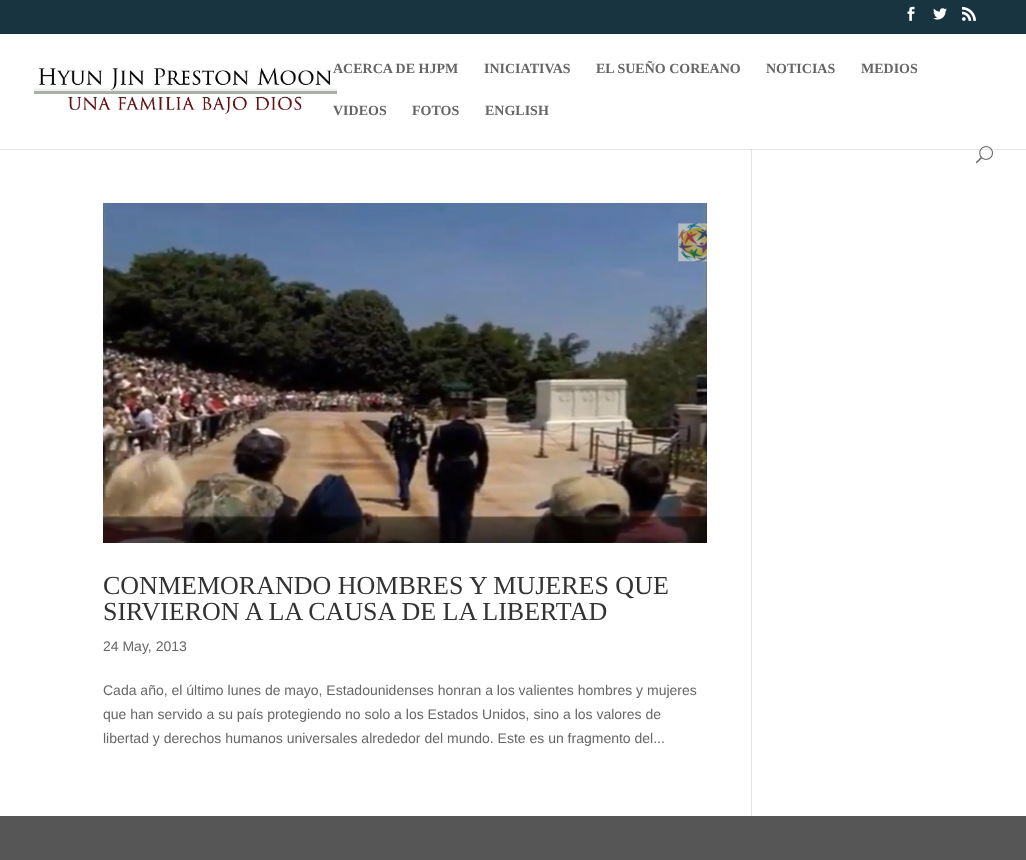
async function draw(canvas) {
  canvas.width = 1026
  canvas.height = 860
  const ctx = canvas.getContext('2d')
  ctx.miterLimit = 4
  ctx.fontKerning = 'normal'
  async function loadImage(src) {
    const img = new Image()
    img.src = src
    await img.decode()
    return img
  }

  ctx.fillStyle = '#fff'
  ctx.fillRect(0, 0, 1026, 860)
  ctx.fillStyle = '#e6e6e6'
  ctx.fillRect(0, 149, 1026, 1)
  ctx.fillStyle = '#193441'
  ctx.fillRect(0, 0, 1026, 34)
  ctx.drawImage(await loadImage('image0.png'), 907, 6, 8, 15)
  ctx.drawImage(await loadImage('image1.png'), 933, 8, 14, 12)
  ctx.drawImage(await loadImage('image2.png'), 962, 6, 14, 15)
  ctx.fillStyle = '#e2e2e2'
  ctx.fillRect(751, 145, 1, 671)
  ctx.fillStyle = '#fff'
  ctx.fillRect(751, 145, 1, 4)
  ctx.drawImage(await loadImage('image3.png'), 34, 68, 303, 46)
  ctx.font = 'bold 14px Liberation Serif'
  ctx.fillStyle = '#666'
  ctx.fillText('ACERCA DE HJPM', 333, 73)
  ctx.fillText('INICIATIVAS', 484, 73)
  ctx.fillText('EL SUEÑO COREANO', 596, 73)
  ctx.fillText('NOTICIAS', 766, 73)
  ctx.fillText('MEDIOS', 861, 73)
  ctx.fillText('VIDEOS', 333, 115)
  ctx.fillText('FOTOS', 412, 115)
  ctx.fillText('ENGLISH', 485, 115)
  ctx.drawImage(await loadImage('image4.png'), 976, 146, 17, 18)
  ctx.drawImage(await loadImage('image5.png'), 103, 203, 604, 340)
  ctx.font = '26px Liberation Serif'
  ctx.fillStyle = '#333'
  ctx.fillText('CONMEMORANDO HOMBRES Y MUJERES QUE', 103, 594)
  ctx.fillText('SIRVIERON A LA CAUSA DE LA LIBERTAD', 103, 620)
  ctx.font = '14px Liberation Sans'
  ctx.fillStyle = '#666'
  ctx.fillText('24 May, 2013', 103, 651)
  ctx.fillText('Cada año, el último lunes de mayo, Estadounidenses honran a los valientes hombres y mujeres', 103, 695)
  ctx.fillText('que han servido a su país protegiendo no solo a los Estados Unidos, sino a los valores de', 103, 719)
  ctx.fillText('libertad y derechos humanos universales alrededor del mundo. Este es un fragmento del...', 103, 743)
  ctx.fillStyle = '#cbcbcb'
  ctx.fillRect(751, 149, 1, 1)
  ctx.fillStyle = '#565656'
  ctx.fillRect(0, 816, 1026, 44)
}

draw(document.querySelector('canvas'))
